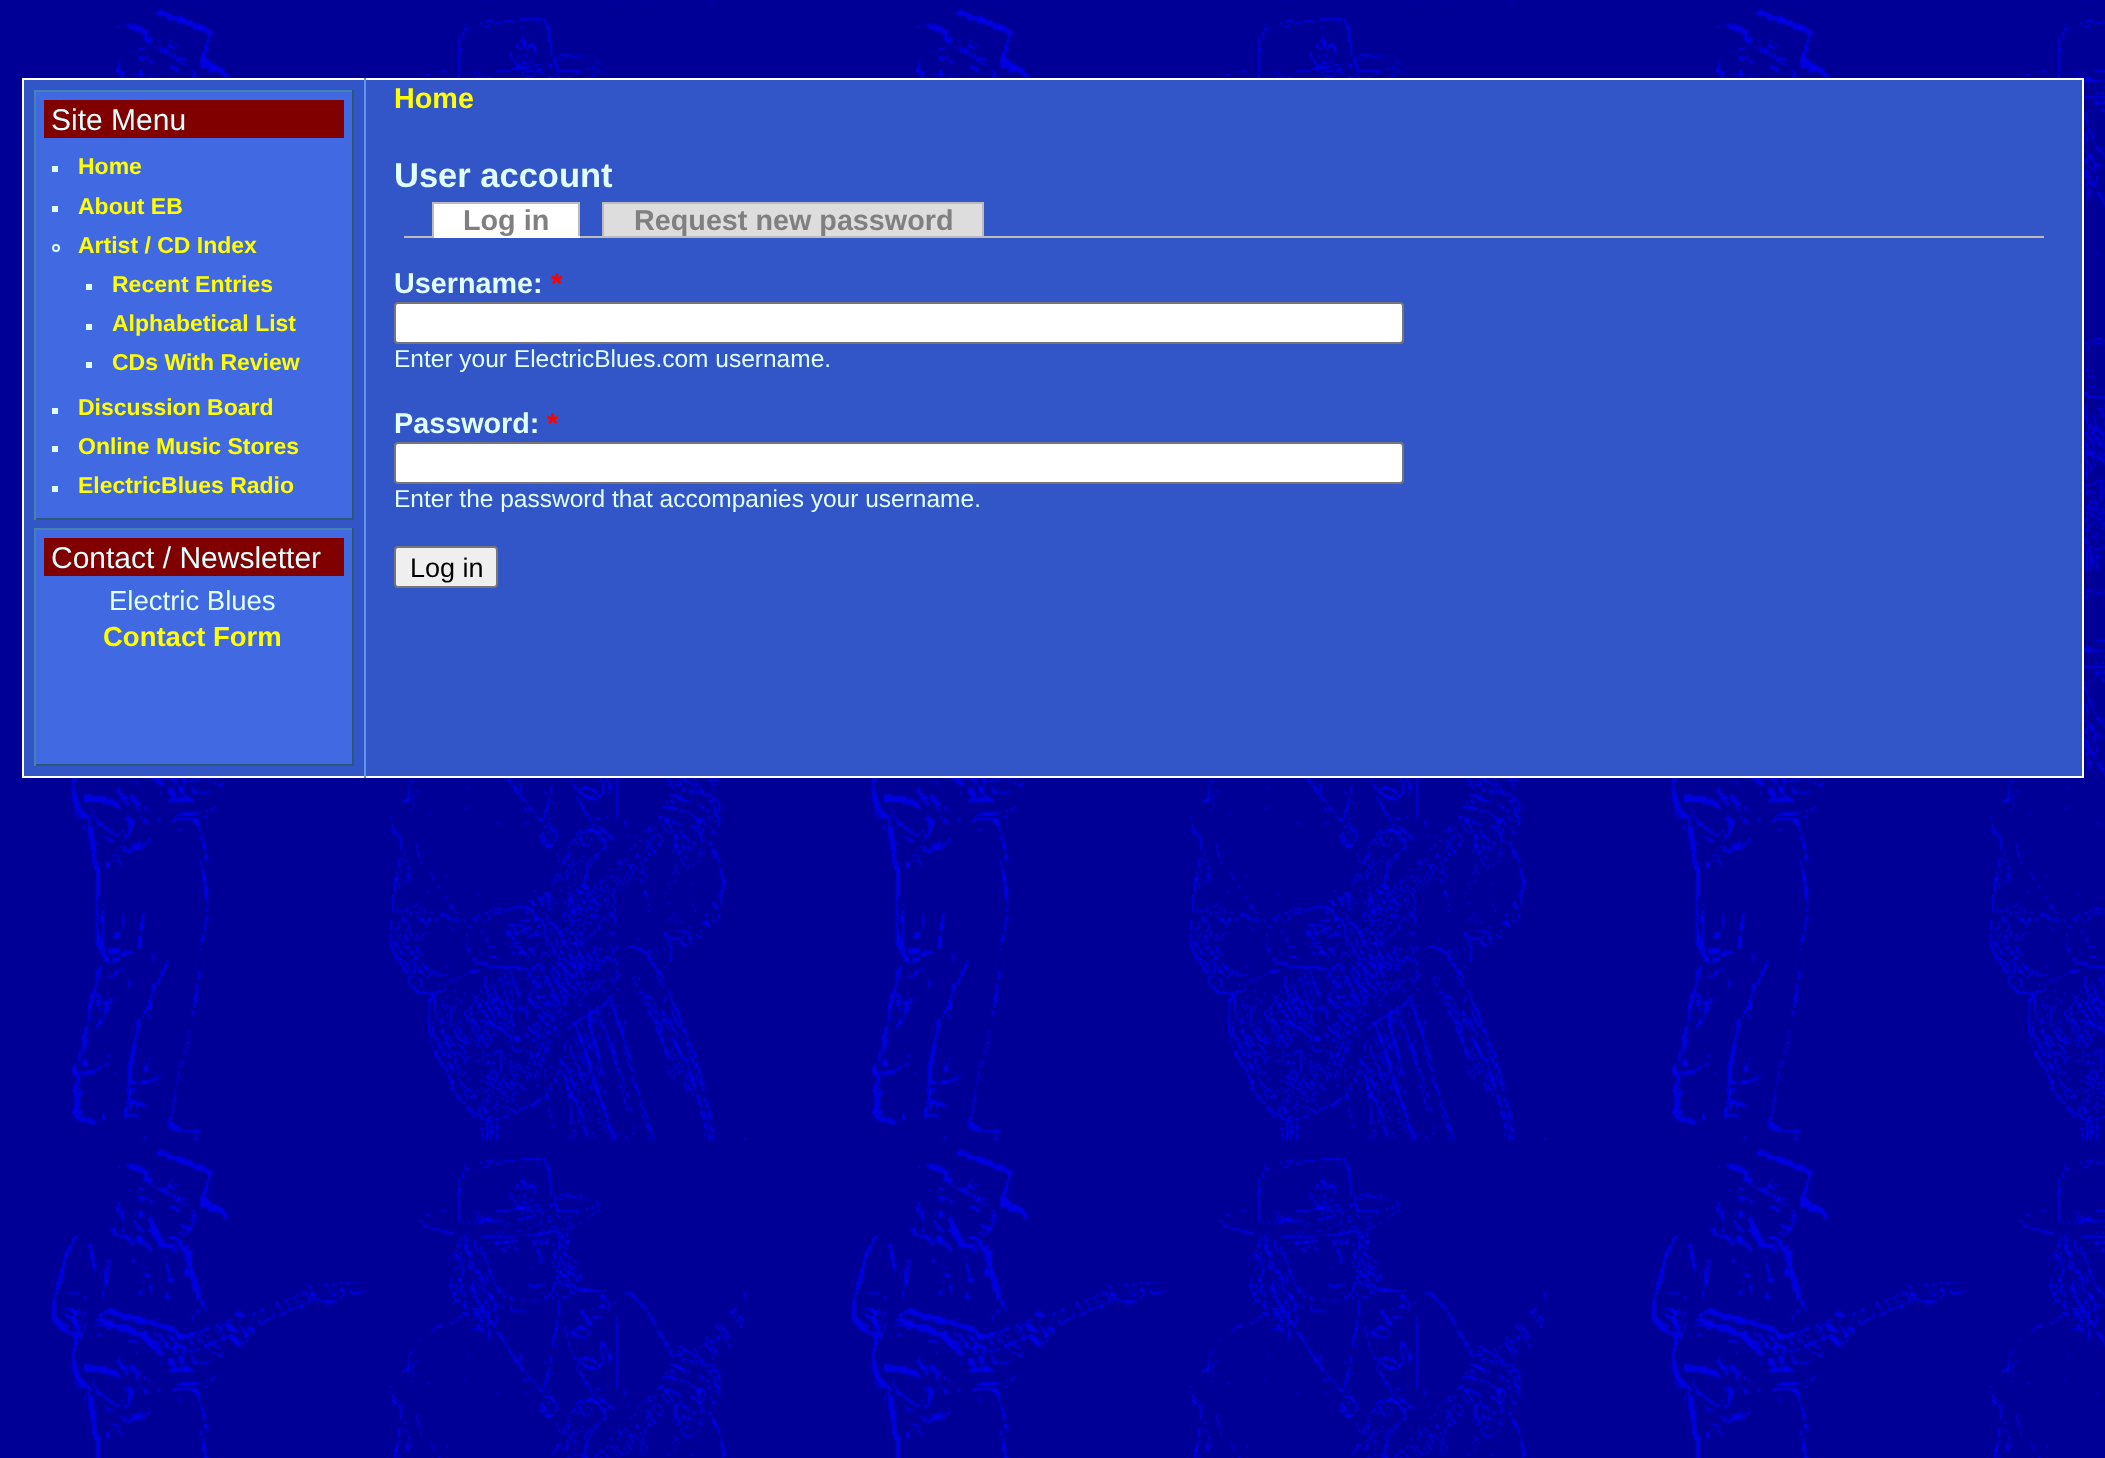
async function draw(canvas) {
  canvas.width = 2105
  canvas.height = 1458
  const ctx = canvas.getContext('2d')
  ctx.miterLimit = 4
  ctx.fontKerning = 'normal'
  async function loadImage(src) {
    const img = new Image()
    img.src = src
    await img.decode()
    return img
  }

  ctx.fillStyle = '#fff'
  ctx.fillRect(0, 0, 2105, 1458)
  ctx.drawImage(await loadImage('image0.png'), 0, 0, 2105, 1458)
  ctx.fillStyle = '#3255c8'
  ctx.fillRect(24, 80, 2058, 696)
  ctx.fillStyle = '#fff'
  ctx.fillRect(22, 78, 2062, 2)
  ctx.fillRect(2082, 78, 2, 700)
  ctx.fillRect(22, 776, 2062, 2)
  ctx.fillRect(22, 78, 2, 700)
  ctx.fillStyle = '#6495ed'
  ctx.fillRect(364, 78, 2, 700)
  ctx.fillStyle = '#4169e1'
  ctx.fillRect(36, 92, 316, 426)
  ctx.fillStyle = '#4682b4'
  ctx.fillRect(34, 90, 320, 2)
  ctx.fillStyle = '#2f5778'
  ctx.fillRect(352, 90, 2, 430)
  ctx.fillRect(34, 518, 320, 2)
  ctx.fillStyle = '#4682b4'
  ctx.fillRect(34, 90, 2, 430)
  ctx.fillStyle = '#800000'
  ctx.fillRect(44, 100, 300, 38)
  ctx.font = '30px Liberation Sans'
  ctx.fillStyle = '#e0ffff'
  ctx.fillText('Site Menu', 51, 130)
  ctx.fillRect(52, 166, 6, 6)
  ctx.font = 'bold 23px Liberation Sans'
  ctx.fillStyle = '#ff0'
  ctx.fillText('Home', 78, 174)
  ctx.fillStyle = '#e0ffff'
  ctx.fillRect(52, 206, 6, 6)
  ctx.fillStyle = '#ff0'
  ctx.fillText('About EB', 78, 214)
  ctx.beginPath()
  ctx.arc(56, 248, 3, 0, 2 * Math.PI)
  ctx.strokeStyle = '#e0ffff'
  ctx.lineWidth = 2
  ctx.stroke()
  ctx.fillText('Artist / CD Index', 78, 253)
  ctx.fillStyle = '#e0ffff'
  ctx.fillRect(86, 284, 6, 6)
  ctx.fillStyle = '#ff0'
  ctx.fillText('Recent Entries', 112, 292)
  ctx.fillStyle = '#e0ffff'
  ctx.fillRect(86, 324, 6, 6)
  ctx.fillStyle = '#ff0'
  ctx.fillText('Alphabetical List', 112, 331)
  ctx.fillStyle = '#e0ffff'
  ctx.fillRect(86, 362, 6, 6)
  ctx.fillStyle = '#ff0'
  ctx.fillText('CDs With Review', 112, 370)
  ctx.fillStyle = '#e0ffff'
  ctx.fillRect(52, 408, 6, 6)
  ctx.fillStyle = '#ff0'
  ctx.fillText('Discussion Board', 78, 415)
  ctx.fillStyle = '#e0ffff'
  ctx.fillRect(52, 446, 6, 6)
  ctx.fillStyle = '#ff0'
  ctx.fillText('Online Music Stores', 78, 454)
  ctx.fillStyle = '#e0ffff'
  ctx.fillRect(52, 486, 6, 6)
  ctx.fillStyle = '#ff0'
  ctx.fillText('ElectricBlues Radio', 78, 493)
  ctx.fillStyle = '#4169e1'
  ctx.fillRect(36, 530, 316, 234)
  ctx.fillStyle = '#4682b4'
  ctx.fillRect(34, 528, 320, 2)
  ctx.fillStyle = '#2f5778'
  ctx.fillRect(352, 528, 2, 238)
  ctx.fillRect(34, 764, 320, 2)
  ctx.fillStyle = '#4682b4'
  ctx.fillRect(34, 528, 2, 238)
  ctx.fillStyle = '#800000'
  ctx.fillRect(44, 538, 300, 38)
  ctx.font = '30px Liberation Sans'
  ctx.fillStyle = '#e0ffff'
  ctx.fillText('Contact / Newsletter', 51, 568)
  ctx.font = '27.5px Liberation Sans'
  ctx.fillText('Electric Blues', 109, 610)
  ctx.font = 'bold 27.5px Liberation Sans'
  ctx.fillStyle = '#ff0'
  ctx.fillText('Contact Form', 103, 646)
  ctx.font = 'bold 28.75px Liberation Sans'
  ctx.fillText('Home', 394, 108)
  ctx.font = 'bold 34.5px Liberation Sans'
  ctx.fillStyle = '#e0ffff'
  ctx.fillText('User account', 394, 187)
  ctx.fillStyle = '#bbb'
  ctx.fillRect(404, 236, 1640, 2)
  ctx.fillStyle = '#fff'
  ctx.fillRect(434, 204, 144, 32)
  ctx.fillStyle = '#bbb'
  ctx.fillRect(432, 202, 148, 2)
  ctx.fillRect(578, 202, 2, 36)
  ctx.fillStyle = '#fff'
  ctx.fillRect(432, 236, 148, 2)
  ctx.font = 'bold 28.75px Liberation Sans'
  ctx.fillStyle = '#808080'
  ctx.fillText('Log in', 463, 230)
  ctx.fillStyle = '#bbb'
  ctx.fillRect(432, 202, 2, 36)
  ctx.fillStyle = '#ddd'
  ctx.fillRect(604, 204, 378, 32)
  ctx.fillStyle = '#808080'
  ctx.fillText('Request new password', 634, 230)
  ctx.fillStyle = '#bbb'
  ctx.fillRect(602, 202, 382, 2)
  ctx.fillRect(982, 202, 2, 34)
  ctx.fillRect(602, 202, 2, 34)
  ctx.fillStyle = '#e0ffff'
  ctx.fillText('Username:', 394, 293)
  ctx.fillStyle = '#f00'
  ctx.fillText('*', 551, 293)
  ctx.fillStyle = '#fff'
  ctx.beginPath()
  ctx.roundRect(395, 303, 1008, 40, 3)
  ctx.fill()
  ctx.strokeStyle = '#767676'
  ctx.stroke()
  ctx.font = '24.5px Liberation Sans'
  ctx.fillStyle = '#e0ffff'
  ctx.fillText('Enter your ElectricBlues.com username.', 394, 367)
  ctx.font = 'bold 28.75px Liberation Sans'
  ctx.fillText('Password:', 394, 433)
  ctx.fillStyle = '#f00'
  ctx.fillText('*', 547, 433)
  ctx.fillStyle = '#fff'
  ctx.beginPath()
  ctx.roundRect(395, 443, 1008, 40, 3)
  ctx.fill()
  ctx.stroke()
  ctx.font = '24.5px Liberation Sans'
  ctx.fillStyle = '#e0ffff'
  ctx.fillText('Enter the password that accompanies your username.', 394, 507)
  ctx.fillStyle = '#efefef'
  ctx.beginPath()
  ctx.roundRect(395, 547, 102, 40, 3)
  ctx.fill()
  ctx.stroke()
  ctx.font = '27px Liberation Sans'
  ctx.fillStyle = '#000'
  ctx.fillText('Log in', 410, 577)
}

draw(document.querySelector('canvas'))
